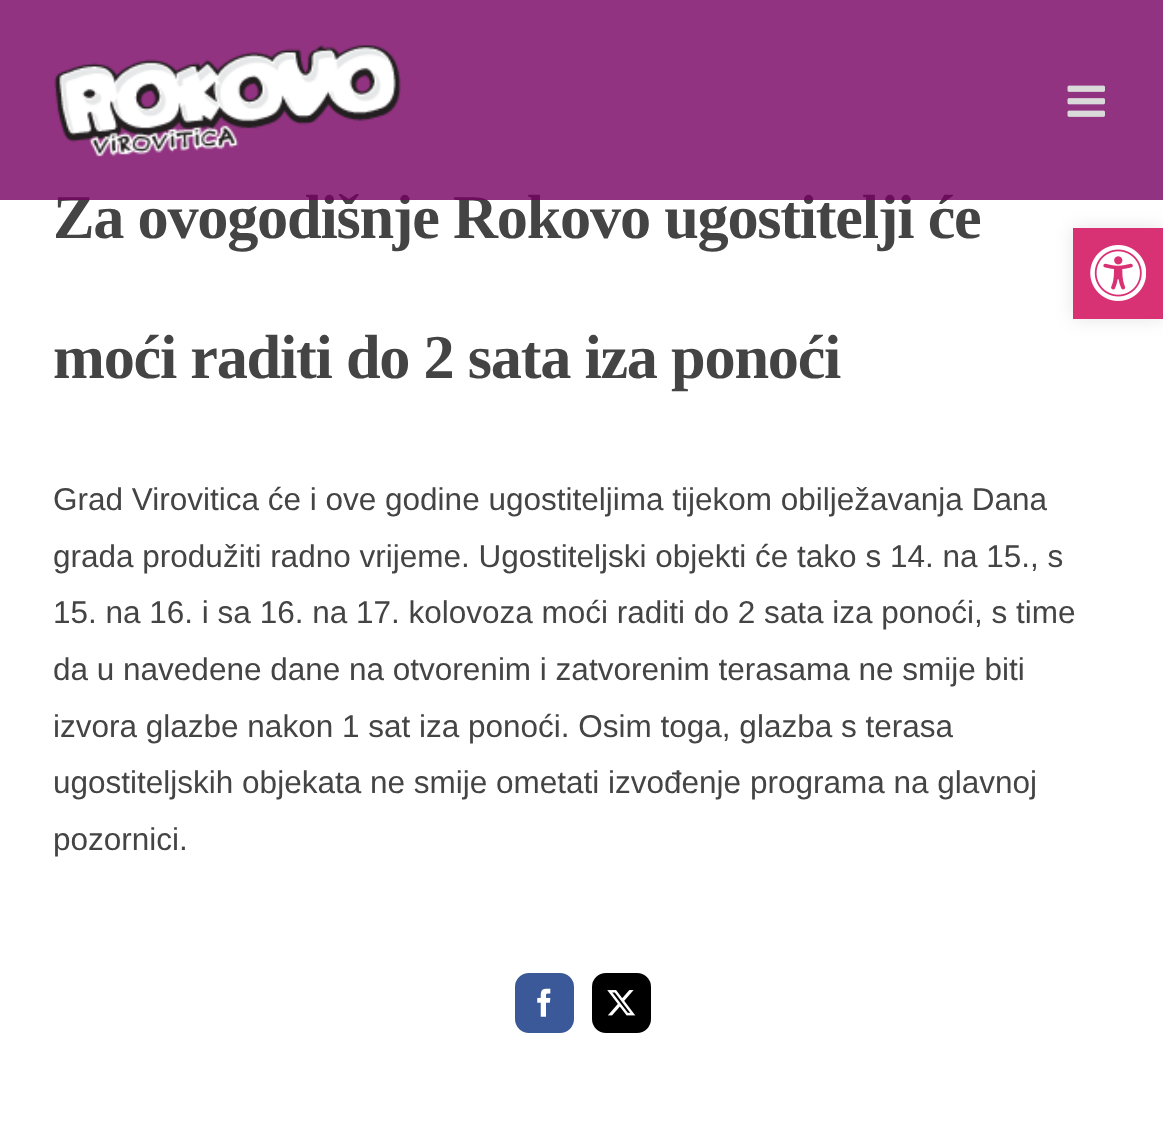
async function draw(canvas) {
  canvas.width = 1163
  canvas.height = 1128
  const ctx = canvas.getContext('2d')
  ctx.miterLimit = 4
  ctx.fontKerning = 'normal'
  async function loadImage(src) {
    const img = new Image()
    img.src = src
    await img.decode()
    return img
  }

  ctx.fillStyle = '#fff'
  ctx.fillRect(0, 0, 1163, 1128)
  ctx.letterSpacing = '-1.25px'
  ctx.font = 'bold 62.3px Liberation Serif'
  ctx.fillStyle = '#444'
  ctx.fillText('Za ovogodišnje Rokovo ugostitelji će', 53, 238)
  ctx.fillStyle = '#750060cc'
  ctx.fillRect(0, 0, 1163, 200)
  ctx.drawImage(await loadImage('image0.png'), 54, 45, 347, 112)
  ctx.drawImage(await loadImage('image1.png'), 1067, 85, 38, 32)
  ctx.fillStyle = '#444'
  ctx.fillText('moći raditi do 2 sata iza ponoći', 53, 378)
  ctx.letterSpacing = '0px'
  ctx.font = '31.5px Liberation Sans'
  ctx.fillText('Grad Virovitica će i ove godine ugostiteljima tijekom obilježavanja Dana', 53, 510)
  ctx.fillText('grada produžiti radno vrijeme. Ugostiteljski objekti će tako s 14. na 15., s', 53, 567)
  ctx.fillText('15. na 16. i sa 16. na 17. kolovoza moći raditi do 2 sata iza ponoći, s time', 53, 623)
  ctx.fillText('da u navedene dane na otvorenim i zatvorenim terasama ne smije biti', 53, 680)
  ctx.fillText('izvora glazbe nakon 1 sat iza ponoći. Osim toga, glazba s terasa', 53, 737)
  ctx.fillText('ugostiteljskih objekata ne smije ometati izvođenje programa na glavnoj', 53, 793)
  ctx.fillText('pozornici.', 53, 850)
  ctx.fillStyle = '#3b5998'
  ctx.beginPath()
  ctx.roundRect(516, 974, 57, 58, 13)
  ctx.fill()
  ctx.strokeStyle = '#3b5998'
  ctx.lineWidth = 2
  ctx.stroke()
  ctx.drawImage(await loadImage('image2.png'), 537, 988, 14, 29)
  ctx.fillStyle = '#000'
  ctx.beginPath()
  ctx.roundRect(593, 974, 57, 58, 13)
  ctx.fill()
  ctx.strokeStyle = '#000'
  ctx.stroke()
  ctx.drawImage(await loadImage('image3.png'), 607, 990, 29, 26)
  ctx.fillStyle = '#0000001a'
  ctx.filter = 'blur(9px)'
  ctx.beginPath()
  ctx.rect(1073, 228, 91, 91)
  ctx.fill()
  ctx.filter = 'none'
  ctx.fillStyle = '#d83174'
  ctx.fillRect(1073, 228, 90, 91)
  ctx.drawImage(await loadImage('image4.png'), 1090, 245, 56, 56)
}

draw(document.querySelector('canvas'))
